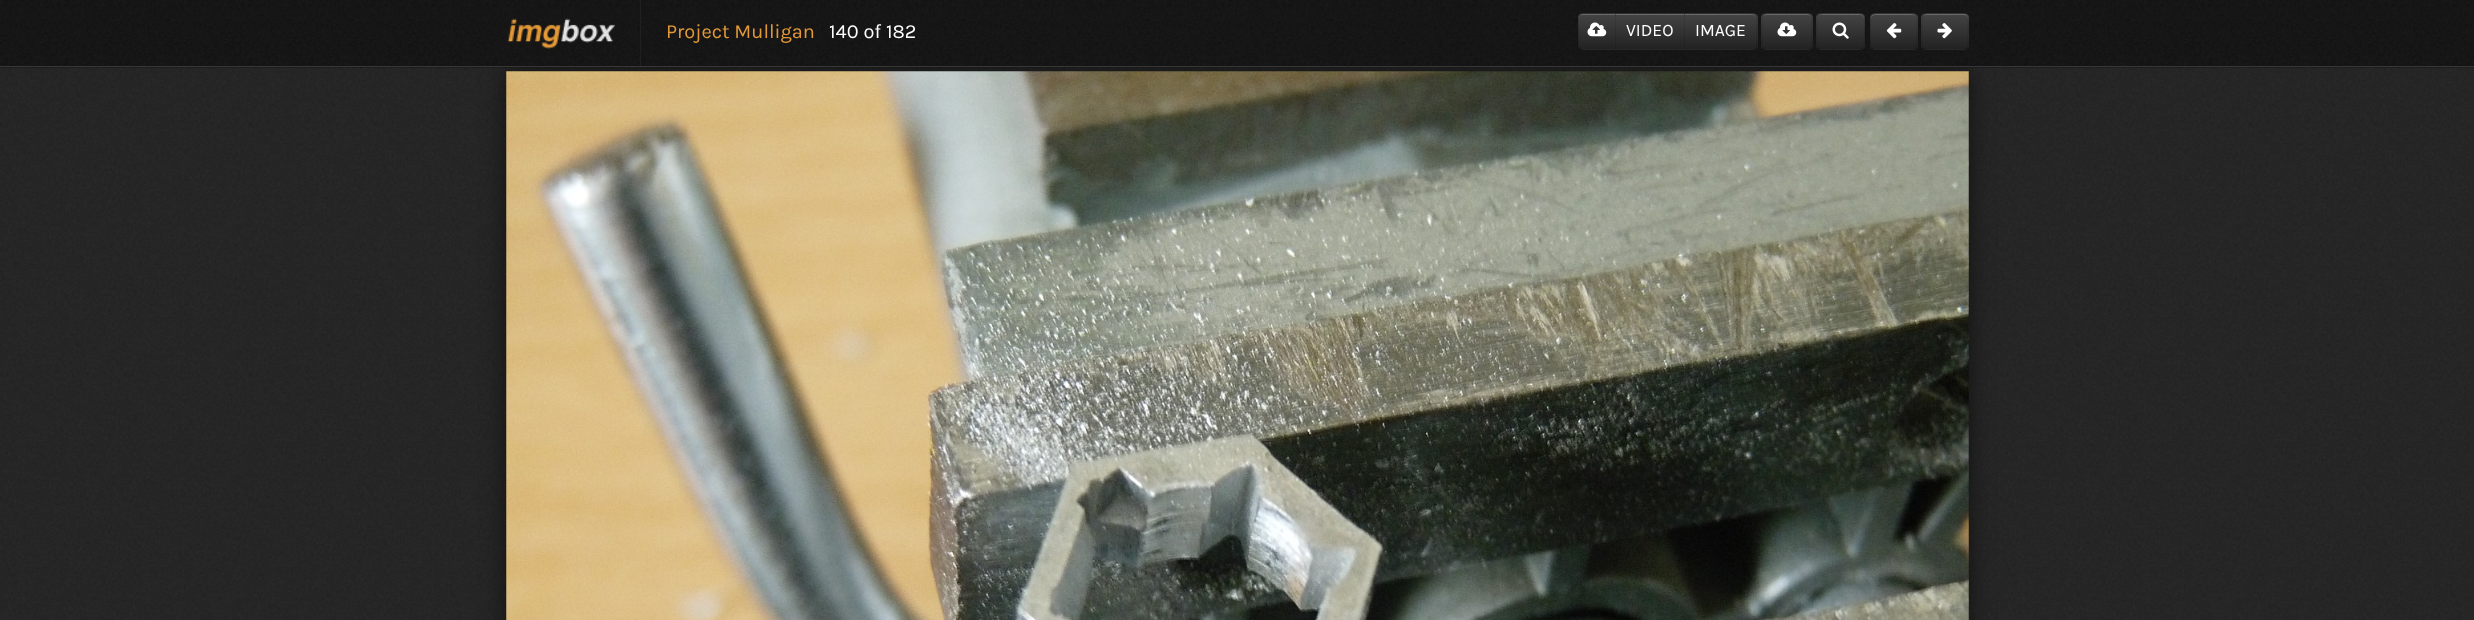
async function draw(canvas) {
  canvas.width = 2474
  canvas.height = 620
  const ctx = canvas.getContext('2d')
  ctx.miterLimit = 4
  ctx.fontKerning = 'normal'
  async function loadImage(src) {
    const img = new Image()
    img.src = src
    await img.decode()
    return img
  }
  let gradient

  ctx.fillStyle = '#262626'
  ctx.fillRect(0, 0, 2474, 620)
  ctx.drawImage(await loadImage('image0.png'), 0, 67, 2470, 553)
  ctx.fillStyle = '#111'
  ctx.filter = 'blur(12.5px)'
  ctx.beginPath()
  ctx.rect(506, 71, 1463, 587)
  ctx.fill()
  ctx.filter = 'none'
  ctx.drawImage(await loadImage('image1.png'), 0, 0, 2474, 68)
  ctx.fillStyle = '#373737'
  ctx.fillRect(0, 66, 2474, 1)
  ctx.drawImage(await loadImage('image2.png'), 507, 18, 108, 31)
  ctx.fillStyle = '#202020'
  ctx.fillRect(640, 0, 1, 66)
  ctx.font = '20px Karla'
  ctx.fillStyle = '#e39938'
  ctx.fillText('Project Mulligan', 666, 38)
  ctx.fillStyle = '#fdfeff'
  ctx.fillText('140 of 182', 829, 38)
  ctx.fillStyle = '#363636'
  ctx.beginPath()
  ctx.roundRect(1578, 13, 38, 37, [5, 0, 0, 5])
  ctx.fill()
  ctx.save()
  ctx.beginPath()
  ctx.roundRect(1578, 13, 38, 37, [5, 0, 0, 5])
  ctx.clip()
  gradient = ctx.createLinearGradient(1597, 14, 1597, 49)
  gradient.addColorStop(0, '#444')
  gradient.addColorStop(1, '#222')
  ctx.fillStyle = gradient
  ctx.fillRect(1578, 14, 37, 35)
  ctx.restore()
  ctx.fillStyle = '#696969'
  ctx.beginPath()
  ctx.moveTo(1582, 15)
  ctx.lineTo(1615, 15)
  ctx.lineTo(1615, 14)
  ctx.lineTo(1583, 14)
  ctx.bezierCurveTo(1581, 14, 1579, 16, 1579, 18)
  ctx.lineTo(1579, 19)
  ctx.bezierCurveTo(1579, 17, 1580, 15, 1582, 15)
  ctx.closePath()
  ctx.fill()
  ctx.fillStyle = '#0000001a'
  ctx.beginPath()
  ctx.moveTo(1582.5, 12.5)
  ctx.bezierCurveTo(1581, 12.5, 1580, 13, 1579, 14)
  ctx.lineTo(1580, 15)
  ctx.bezierCurveTo(1580.5, 14.5, 1581.5, 14, 1582.5, 14)
  ctx.lineTo(1615, 14)
  ctx.lineTo(1616, 12.5)
  ctx.closePath()
  ctx.fill()
  ctx.fillStyle = '#00000040'
  ctx.beginPath()
  ctx.moveTo(1582.5, 50)
  ctx.lineTo(1616, 50)
  ctx.lineTo(1615, 49)
  ctx.lineTo(1582.5, 49)
  ctx.bezierCurveTo(1581.5, 49, 1580.5, 48.5, 1580, 47.5)
  ctx.lineTo(1579, 48.5)
  ctx.bezierCurveTo(1580, 49.5, 1581, 50, 1582.5, 50)
  ctx.closePath()
  ctx.fill()
  ctx.fillStyle = '#0000001a'
  ctx.beginPath()
  ctx.moveTo(1577.5, 17.5)
  ctx.lineTo(1577.5, 45)
  ctx.bezierCurveTo(1577.5, 46.5, 1578, 48, 1579, 48.5)
  ctx.lineTo(1580, 47.5)
  ctx.bezierCurveTo(1579.5, 47, 1579, 46, 1579, 45)
  ctx.lineTo(1579, 17.5)
  ctx.bezierCurveTo(1579, 16.5, 1579.5, 15.5, 1580, 15)
  ctx.lineTo(1579, 14)
  ctx.bezierCurveTo(1578, 15, 1577.5, 16, 1577.5, 17.5)
  ctx.closePath()
  ctx.fill()
  ctx.drawImage(await loadImage('image3.png'), 1587, 22, 20, 15)
  ctx.fillStyle = '#363636'
  ctx.fillRect(1615, 13, 69, 37)
  gradient = ctx.createLinearGradient(1650, 14, 1650, 49)
  gradient.addColorStop(0, '#444')
  gradient.addColorStop(1, '#222')
  ctx.fillStyle = gradient
  ctx.fillRect(1615, 14, 69, 35)
  ctx.fillStyle = '#696969'
  ctx.fillRect(1616, 14, 68, 1)
  ctx.fillStyle = '#0000001a'
  ctx.beginPath()
  ctx.moveTo(1615, 12)
  ctx.lineTo(1685, 12)
  ctx.lineTo(1684, 14)
  ctx.lineTo(1616, 14)
  ctx.closePath()
  ctx.fill()
  ctx.fillStyle = '#00000040'
  ctx.beginPath()
  ctx.moveTo(1685, 50)
  ctx.lineTo(1615, 50)
  ctx.lineTo(1616, 49)
  ctx.lineTo(1684, 49)
  ctx.closePath()
  ctx.fill()
  ctx.fillStyle = '#0000001a'
  ctx.beginPath()
  ctx.moveTo(1615, 50)
  ctx.lineTo(1615, 12.5)
  ctx.lineTo(1616, 14)
  ctx.lineTo(1616, 49)
  ctx.closePath()
  ctx.fill()
  ctx.font = '17.5px Karla'
  ctx.fillStyle = '#fdfeff'
  ctx.fillText('VIDEO', 1626, 36)
  ctx.fillStyle = '#363636'
  ctx.beginPath()
  ctx.roundRect(1684, 13, 74, 37, [0, 5, 5, 0])
  ctx.fill()
  ctx.save()
  ctx.beginPath()
  ctx.roundRect(1684, 13, 74, 37, [0, 5, 5, 0])
  ctx.clip()
  gradient = ctx.createLinearGradient(1721, 14, 1721, 49)
  gradient.addColorStop(0, '#444')
  gradient.addColorStop(1, '#222')
  ctx.fillStyle = gradient
  ctx.fillRect(1684, 14, 74, 35)
  ctx.restore()
  ctx.fillStyle = '#696969'
  ctx.beginPath()
  ctx.moveTo(1685, 15)
  ctx.lineTo(1752, 15)
  ctx.bezierCurveTo(1755, 15, 1756, 17, 1756, 19)
  ctx.lineTo(1756, 18)
  ctx.bezierCurveTo(1756, 16, 1754, 14, 1752, 14)
  ctx.lineTo(1685, 14)
  ctx.closePath()
  ctx.fill()
  ctx.fillStyle = '#0000001a'
  ctx.beginPath()
  ctx.moveTo(1684, 13)
  ctx.lineTo(1754, 12)
  ctx.lineTo(1756, 14)
  ctx.lineTo(1755, 15)
  ctx.bezierCurveTo(1753, 13, 1693, 14, 1685, 14)
  ctx.closePath()
  ctx.fill()
  ctx.beginPath()
  ctx.moveTo(1757.5, 47)
  ctx.lineTo(1756, 48.5)
  ctx.lineTo(1755, 47.5)
  ctx.bezierCurveTo(1756, 47, 1756, 46, 1756, 45)
  ctx.lineTo(1756, 18)
  ctx.bezierCurveTo(1756, 16.5, 1756, 15.5, 1755, 15)
  ctx.lineTo(1756, 14)
  ctx.lineTo(1757.5, 16)
  ctx.closePath()
  ctx.fill()
  ctx.fillStyle = '#00000040'
  ctx.beginPath()
  ctx.moveTo(1684, 50)
  ctx.lineTo(1752, 50)
  ctx.bezierCurveTo(1754, 50, 1755, 50, 1756, 49)
  ctx.lineTo(1755, 48)
  ctx.lineTo(1753, 49)
  ctx.lineTo(1685, 49)
  ctx.closePath()
  ctx.fill()
  ctx.fillStyle = '#0000001a'
  ctx.beginPath()
  ctx.moveTo(1685, 14)
  ctx.lineTo(1685, 49)
  ctx.lineTo(1684, 50)
  ctx.lineTo(1684, 13)
  ctx.closePath()
  ctx.fill()
  ctx.fillStyle = '#fdfeff'
  ctx.fillText('IMAGE', 1695, 36)
  ctx.fillStyle = '#363636'
  ctx.beginPath()
  ctx.roundRect(1761, 13, 52, 37, 5)
  ctx.fill()
  ctx.save()
  ctx.beginPath()
  ctx.roundRect(1761, 13, 52, 37, 5)
  ctx.clip()
  gradient = ctx.createLinearGradient(1787, 14, 1787, 49)
  gradient.addColorStop(0, '#444')
  gradient.addColorStop(1, '#222')
  ctx.fillStyle = gradient
  ctx.fillRect(1761, 14, 52, 35)
  ctx.restore()
  ctx.fillStyle = '#696969'
  ctx.beginPath()
  ctx.moveTo(1766, 15)
  ctx.lineTo(1808, 15)
  ctx.bezierCurveTo(1810, 15, 1811, 17, 1811, 19)
  ctx.lineTo(1811, 18)
  ctx.bezierCurveTo(1811, 16, 1809, 14, 1807, 14)
  ctx.lineTo(1767, 14)
  ctx.bezierCurveTo(1766, 14, 1764, 15, 1764, 16)
  ctx.closePath()
  ctx.fill()
  ctx.beginPath()
  ctx.moveTo(1810.5, 48)
  ctx.bezierCurveTo(1810, 49, 1808.5, 49.5, 1807.5, 49.5)
  ctx.lineTo(1766, 49.5)
  ctx.bezierCurveTo(1765, 49.5, 1764, 49, 1763, 48)
  ctx.strokeStyle = '#00000040'
  ctx.lineWidth = 1.2
  ctx.stroke()
  ctx.beginPath()
  ctx.moveTo(1763, 48)
  ctx.bezierCurveTo(1762.5, 47.5, 1762, 46, 1762, 45)
  ctx.lineTo(1762, 17.5)
  ctx.bezierCurveTo(1762, 16.5, 1762.5, 15, 1763, 14.5)
  ctx.bezierCurveTo(1764, 13.5, 1765, 13, 1766, 13)
  ctx.lineTo(1807.5, 13)
  ctx.bezierCurveTo(1808.5, 13, 1810, 13.5, 1810.5, 14.5)
  ctx.bezierCurveTo(1811.5, 15, 1812, 16.5, 1812, 17.5)
  ctx.lineTo(1812, 45)
  ctx.bezierCurveTo(1812, 46, 1811.5, 47.5, 1810.5, 48)
  ctx.strokeStyle = '#0000001a'
  ctx.stroke()
  ctx.drawImage(await loadImage('image4.png'), 1777, 22, 20, 15)
  ctx.fillStyle = '#363636'
  ctx.beginPath()
  ctx.roundRect(1816, 13, 49, 37, 5)
  ctx.fill()
  ctx.save()
  ctx.beginPath()
  ctx.roundRect(1816, 13, 49, 37, 5)
  ctx.clip()
  gradient = ctx.createLinearGradient(1841, 14, 1841, 49)
  gradient.addColorStop(0, '#444')
  gradient.addColorStop(1, '#222')
  ctx.fillStyle = gradient
  ctx.fillRect(1816, 14, 49, 35)
  ctx.restore()
  ctx.fillStyle = '#696969'
  ctx.beginPath()
  ctx.moveTo(1821, 15)
  ctx.lineTo(1860, 15)
  ctx.bezierCurveTo(1862, 15, 1864, 17, 1864, 19)
  ctx.bezierCurveTo(1864, 13, 1858, 14, 1854, 14)
  ctx.lineTo(1828, 14)
  ctx.bezierCurveTo(1824, 14, 1818, 13, 1818, 19)
  ctx.bezierCurveTo(1818, 17, 1819, 15, 1821, 15)
  ctx.closePath()
  ctx.fill()
  ctx.beginPath()
  ctx.moveTo(1863, 48)
  ctx.bezierCurveTo(1862.5, 49, 1861, 49.5, 1860, 49.5)
  ctx.lineTo(1821, 49.5)
  ctx.bezierCurveTo(1820, 49.5, 1819, 49, 1818, 48)
  ctx.strokeStyle = '#00000040'
  ctx.stroke()
  ctx.beginPath()
  ctx.moveTo(1818, 48)
  ctx.bezierCurveTo(1817.5, 47.5, 1817, 46, 1817, 45)
  ctx.lineTo(1817, 17.5)
  ctx.bezierCurveTo(1817, 16.5, 1817.5, 15, 1818, 14.5)
  ctx.bezierCurveTo(1819, 13.5, 1820, 13, 1821, 13)
  ctx.lineTo(1860, 13)
  ctx.bezierCurveTo(1861, 13, 1862.5, 13.5, 1863, 14.5)
  ctx.bezierCurveTo(1864, 15, 1864.5, 16.5, 1864.5, 17.5)
  ctx.lineTo(1864.5, 45)
  ctx.bezierCurveTo(1864.5, 46, 1864, 47.5, 1863, 48)
  ctx.strokeStyle = '#0000001a'
  ctx.stroke()
  ctx.drawImage(await loadImage('image5.png'), 1832, 22, 17, 17)
  ctx.fillStyle = '#363636'
  ctx.beginPath()
  ctx.roundRect(1870, 13, 48, 37, 5)
  ctx.fill()
  ctx.save()
  ctx.beginPath()
  ctx.roundRect(1870, 13, 48, 37, 5)
  ctx.clip()
  gradient = ctx.createLinearGradient(1894, 14, 1894, 49)
  gradient.addColorStop(0, '#444')
  gradient.addColorStop(1, '#222')
  ctx.fillStyle = gradient
  ctx.fillRect(1870, 14, 48, 35)
  ctx.restore()
  ctx.fillStyle = '#696969'
  ctx.beginPath()
  ctx.moveTo(1875, 15)
  ctx.lineTo(1912, 15)
  ctx.bezierCurveTo(1915, 15, 1916, 17, 1916, 19)
  ctx.bezierCurveTo(1916, 13, 1911, 14, 1906, 14)
  ctx.lineTo(1881, 14)
  ctx.bezierCurveTo(1876, 14, 1871, 13, 1871, 19)
  ctx.bezierCurveTo(1871, 17, 1873, 15, 1875, 15)
  ctx.closePath()
  ctx.fill()
  ctx.beginPath()
  ctx.moveTo(1915.5, 48)
  ctx.bezierCurveTo(1915, 49, 1913.5, 49.5, 1912.5, 49.5)
  ctx.lineTo(1875, 49.5)
  ctx.bezierCurveTo(1874, 49.5, 1872.5, 49, 1872, 48)
  ctx.strokeStyle = '#00000040'
  ctx.stroke()
  ctx.beginPath()
  ctx.moveTo(1872, 48)
  ctx.bezierCurveTo(1870, 46, 1870.5, 43, 1870.5, 40.5)
  ctx.lineTo(1870.5, 31)
  ctx.bezierCurveTo(1870.5, 8.5, 1869, 13, 1894, 13)
  ctx.bezierCurveTo(1918.5, 13, 1917, 8.5, 1917, 31)
  ctx.lineTo(1917, 40.5)
  ctx.bezierCurveTo(1917, 43, 1917.5, 46, 1915.5, 48)
  ctx.strokeStyle = '#0000001a'
  ctx.stroke()
  ctx.drawImage(await loadImage('image6.png'), 1886, 23, 16, 16)
  ctx.fillStyle = '#363636'
  ctx.beginPath()
  ctx.roundRect(1921, 13, 48, 37, 5)
  ctx.fill()
  ctx.save()
  ctx.beginPath()
  ctx.roundRect(1921, 13, 48, 37, 5)
  ctx.clip()
  gradient = ctx.createLinearGradient(1945, 14, 1945, 49)
  gradient.addColorStop(0, '#444')
  gradient.addColorStop(1, '#222')
  ctx.fillStyle = gradient
  ctx.fillRect(1921, 14, 48, 35)
  ctx.restore()
  ctx.fillStyle = '#696969'
  ctx.beginPath()
  ctx.moveTo(1926, 15)
  ctx.lineTo(1964, 15)
  ctx.bezierCurveTo(1966, 15, 1968, 17, 1968, 19)
  ctx.lineTo(1968, 18)
  ctx.bezierCurveTo(1968, 16, 1966, 14, 1964, 14)
  ctx.lineTo(1927, 14)
  ctx.bezierCurveTo(1926, 14, 1924, 15, 1924, 16)
  ctx.closePath()
  ctx.fill()
  ctx.beginPath()
  ctx.moveTo(1967, 48)
  ctx.bezierCurveTo(1966, 49, 1965, 49.5, 1964, 49.5)
  ctx.lineTo(1926, 49.5)
  ctx.bezierCurveTo(1925, 49.5, 1924, 49, 1923, 48)
  ctx.strokeStyle = '#00000040'
  ctx.stroke()
  ctx.beginPath()
  ctx.moveTo(1923, 48)
  ctx.bezierCurveTo(1921, 46, 1922, 43, 1922, 40.5)
  ctx.lineTo(1922, 31)
  ctx.bezierCurveTo(1922, 8.5, 1920, 13, 1945, 13)
  ctx.bezierCurveTo(1970, 13, 1968, 8.5, 1968, 31)
  ctx.lineTo(1968, 40.5)
  ctx.bezierCurveTo(1968, 43, 1969, 46, 1967, 48)
  ctx.strokeStyle = '#0000001a'
  ctx.stroke()
  ctx.drawImage(await loadImage('image7.png'), 1937, 23, 15, 16)
  ctx.drawImage(await loadImage('image8.png'), 506, 71, 1463, 549)
}

draw(document.querySelector('canvas'))
